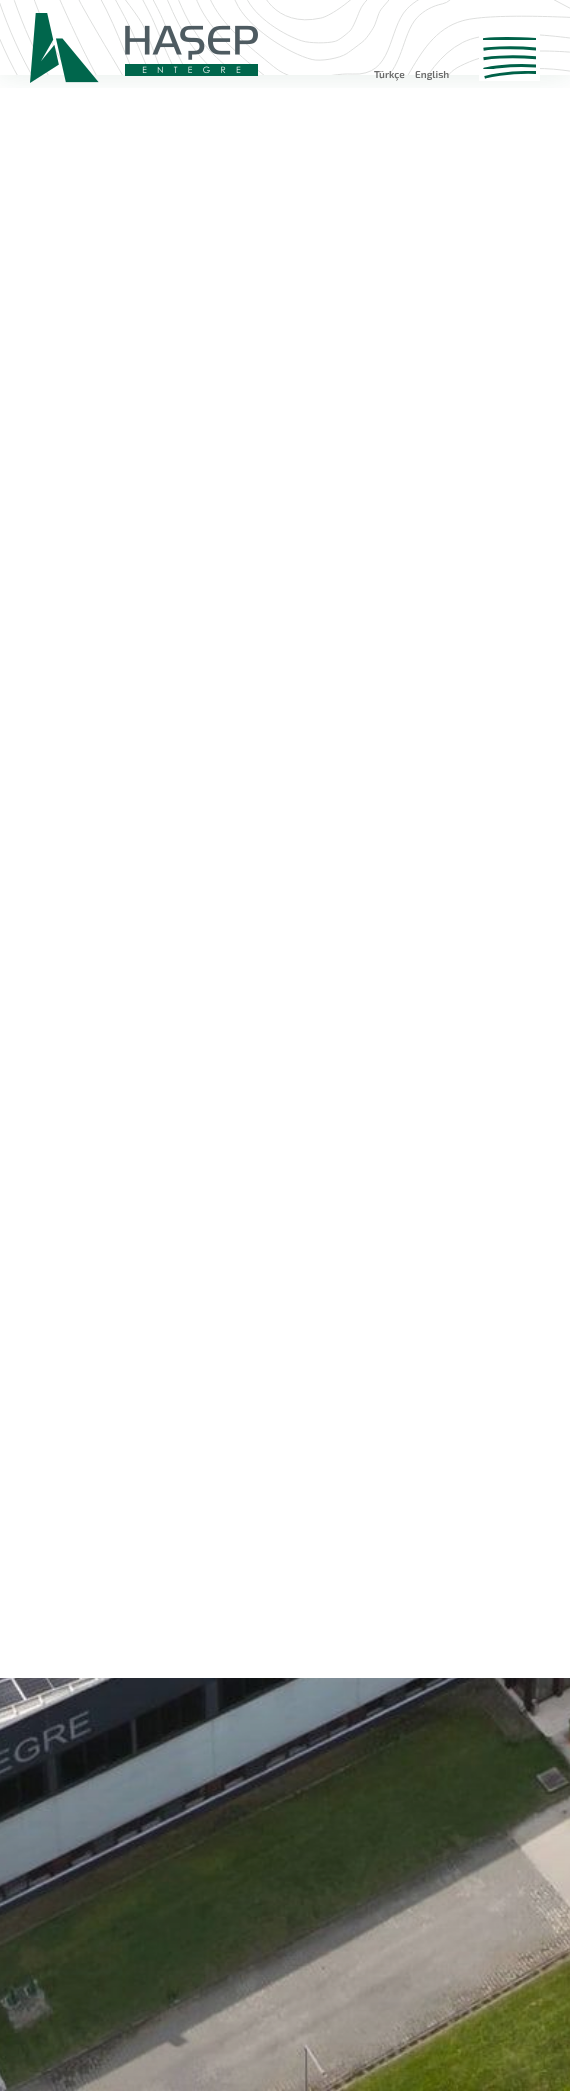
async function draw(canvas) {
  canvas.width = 570
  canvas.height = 2091
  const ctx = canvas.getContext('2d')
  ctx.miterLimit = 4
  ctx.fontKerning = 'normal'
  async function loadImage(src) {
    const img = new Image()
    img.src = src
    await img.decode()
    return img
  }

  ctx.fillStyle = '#fff'
  ctx.fillRect(0, 0, 570, 2091)
  ctx.save()
  ctx.beginPath()
  ctx.rect(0, 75, 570, 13)
  ctx.clip()
  ctx.fillStyle = '#024b231a'
  ctx.filter = 'blur(15px)'
  ctx.beginPath()
  ctx.rect(0, 0, 570, 75)
  ctx.fill()
  ctx.filter = 'none'
  ctx.restore()
  ctx.drawImage(await loadImage('image0.png'), 0, 0, 570, 75)
  ctx.drawImage(await loadImage('image1.png'), 30, 13, 228, 70)
  ctx.font = '600 10px "Exo 2"'
  ctx.fillStyle = '#696969'
  ctx.fillText('Türkçe', 374, 78)
  ctx.fillText('English', 415, 78)
  ctx.fillStyle = '#fff'
  ctx.fillRect(479, 33, 61, 48)
  ctx.save()
  ctx.beginPath()
  ctx.rect(483, 37, 53, 3)
  ctx.clip()
  ctx.beginPath()
  ctx.moveTo(484.5, 39.5)
  ctx.bezierCurveTo(484.5, 39.5, 503, 37.5, 536.5, 39.5)
  ctx.strokeStyle = '#006148'
  ctx.lineWidth = 3
  ctx.lineCap = 'square'
  ctx.lineJoin = 'round'
  ctx.stroke()
  ctx.restore()
  ctx.save()
  ctx.beginPath()
  ctx.rect(483, 46, 53, 23)
  ctx.clip()
  ctx.beginPath()
  ctx.moveTo(485, 58.5)
  ctx.bezierCurveTo(485, 58.5, 507, 55, 537.5, 58)
  ctx.moveTo(485, 49)
  ctx.bezierCurveTo(485, 49, 507, 46, 536.5, 49)
  ctx.moveTo(485, 69)
  ctx.bezierCurveTo(485, 69, 506, 64, 536, 66)
  ctx.strokeStyle = '#006148'
  ctx.lineWidth = 3
  ctx.lineCap = 'square'
  ctx.lineJoin = 'round'
  ctx.stroke()
  ctx.restore()
  ctx.save()
  ctx.beginPath()
  ctx.rect(483, 71, 53, 8)
  ctx.clip()
  ctx.beginPath()
  ctx.moveTo(486, 77)
  ctx.bezierCurveTo(486, 77, 506.5, 71.5, 535.5, 72.5)
  ctx.strokeStyle = '#006148'
  ctx.lineWidth = 2.8
  ctx.lineCap = 'square'
  ctx.lineJoin = 'round'
  ctx.stroke()
  ctx.restore()
  ctx.drawImage(await loadImage('image2.png'), 0, 1678, 570, 413)
}

draw(document.querySelector('canvas'))
